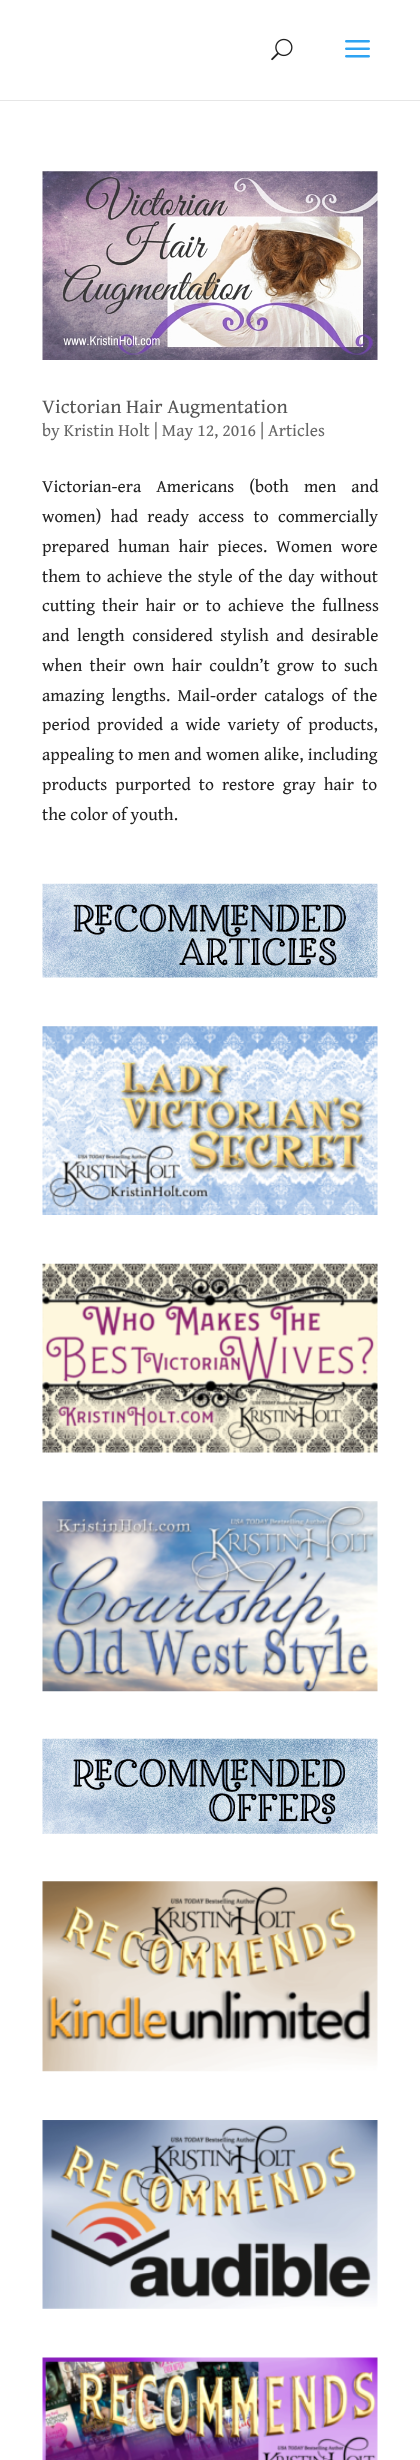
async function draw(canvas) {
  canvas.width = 420
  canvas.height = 2460
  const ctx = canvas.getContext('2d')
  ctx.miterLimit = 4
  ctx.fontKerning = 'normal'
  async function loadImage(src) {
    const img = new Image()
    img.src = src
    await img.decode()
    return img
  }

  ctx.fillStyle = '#fff'
  ctx.fillRect(0, 0, 420, 2460)
  ctx.fillStyle = '#e6e6e6'
  ctx.fillRect(0, 100, 420, 1)
  ctx.drawImage(await loadImage('image0.png'), 271, 38, 22, 23)
  ctx.drawImage(await loadImage('image1.png'), 345, 40, 25, 18)
  ctx.drawImage(await loadImage('image2.png'), 42, 171, 336, 189)
  ctx.font = '20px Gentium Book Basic'
  ctx.fillStyle = '#545454'
  ctx.fillText('Victorian Hair Augmentation', 42, 413)
  ctx.font = '17.5px Gentium Book Basic'
  ctx.fillStyle = '#666'
  ctx.fillText('by Kristin Holt | May 12, 2016 | Articles', 42, 436)
  ctx.wordSpacing = '11px'
  ctx.fillStyle = '#212121'
  ctx.fillText('Victorian-era Americans (both men and', 42, 492)
  ctx.wordSpacing = '5.25px'
  ctx.fillText('women) had ready access to commercially', 42, 522)
  ctx.wordSpacing = '4.75px'
  ctx.fillText('prepared human hair pieces. Women wore', 42, 552)
  ctx.wordSpacing = '1.5px'
  ctx.fillText('them to achieve the style of the day without', 42, 582)
  ctx.wordSpacing = '3px'
  ctx.fillText('cutting their hair or to achieve the fullness', 42, 611)
  ctx.wordSpacing = '3.5px'
  ctx.fillText('and length considered stylish and desirable', 42, 641)
  ctx.wordSpacing = '3.25px'
  ctx.fillText('when their own hair couldn’t grow to such', 42, 671)
  ctx.fillText('amazing lengths. Mail-order catalogs of the', 42, 701)
  ctx.wordSpacing = '3px'
  ctx.fillText('period provided a wide variety of products,', 42, 730)
  ctx.wordSpacing = '0.25px'
  ctx.fillText('appealing to men and women alike, including', 42, 760)
  ctx.wordSpacing = '4px'
  ctx.fillText('products purported to restore gray hair to', 42, 790)
  ctx.wordSpacing = '0px'
  ctx.fillText('the color of youth.', 42, 820)
  ctx.drawImage(await loadImage('image3.png'), 42, 883, 336, 95)
  ctx.drawImage(await loadImage('image4.png'), 42, 1026, 336, 189)
  ctx.drawImage(await loadImage('image5.png'), 42, 1263, 336, 190)
  ctx.drawImage(await loadImage('image6.png'), 42, 1501, 336, 191)
  ctx.drawImage(await loadImage('image7.png'), 42, 1738, 336, 96)
  ctx.drawImage(await loadImage('image8.png'), 42, 1881, 336, 191)
  ctx.drawImage(await loadImage('image9.png'), 42, 2120, 336, 189)
  ctx.drawImage(await loadImage('image10.png'), 42, 2357, 336, 103)
}

draw(document.querySelector('canvas'))
